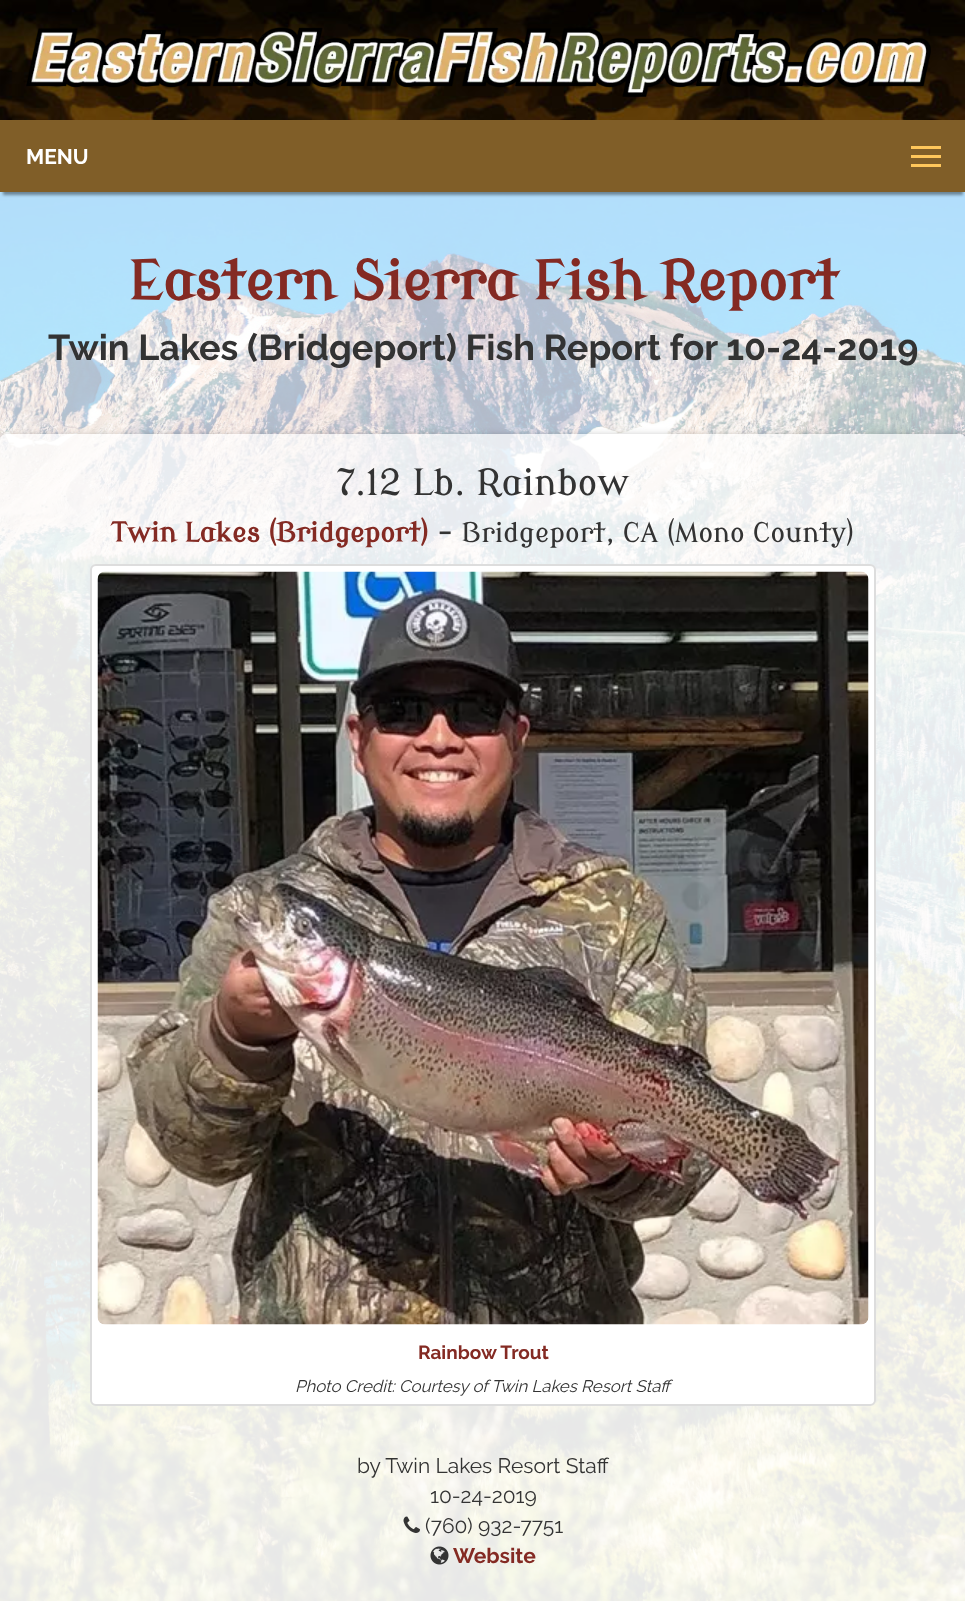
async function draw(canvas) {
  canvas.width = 965
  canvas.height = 1601
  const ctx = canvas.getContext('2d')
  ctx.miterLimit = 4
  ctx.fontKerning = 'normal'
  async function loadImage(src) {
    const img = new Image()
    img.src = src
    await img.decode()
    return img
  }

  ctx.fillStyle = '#fff'
  ctx.fillRect(0, 0, 965, 1601)
  ctx.drawImage(await loadImage('image0.png'), 0, 192, 965, 1409)
  ctx.drawImage(await loadImage('image1.png'), 0, 0, 965, 120)
  ctx.drawImage(await loadImage('image2.png'), 26, 27, 905, 70)
  ctx.fillStyle = '#00000066'
  ctx.filter = 'blur(1.5px)'
  ctx.beginPath()
  ctx.rect(3, 129, 960, 66)
  ctx.fill()
  ctx.filter = 'none'
  ctx.fillStyle = '#805e28'
  ctx.fillRect(0, 120, 965, 72)
  ctx.fillStyle = '#ffc75b'
  ctx.fillRect(911, 146, 30, 3)
  ctx.font = 'bold 21px Raleway'
  ctx.fillStyle = '#fff'
  ctx.fillText('MENU', 26, 164)
  ctx.fillStyle = '#ffc75b'
  ctx.fillRect(911, 155, 30, 3)
  ctx.fillRect(911, 164, 30, 3)
  ctx.font = 'bold 54px Modern Antiqua'
  ctx.fillStyle = '#842a23'
  ctx.fillText('Eastern Sierra Fish Report', 128, 300)
  ctx.font = 'bold 36px Raleway'
  ctx.fillStyle = '#333'
  ctx.fillText('Twin Lakes (Bridgeport) Fish Report for 10-24-2019', 48, 360)
  ctx.save()
  ctx.beginPath()
  ctx.moveTo(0, 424)
  ctx.lineTo(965, 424)
  ctx.lineTo(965, 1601)
  ctx.lineTo(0, 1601)
  ctx.closePath()
  ctx.moveTo(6, 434)
  ctx.lineTo(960, 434)
  ctx.bezierCurveTo(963.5, 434, 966, 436.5, 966, 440)
  ctx.lineTo(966, 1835)
  ctx.bezierCurveTo(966, 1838.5, 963.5, 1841, 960, 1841)
  ctx.lineTo(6, 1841)
  ctx.bezierCurveTo(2.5, 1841, 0, 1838.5, 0, 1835)
  ctx.lineTo(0, 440)
  ctx.bezierCurveTo(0, 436.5, 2.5, 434, 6, 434)
  ctx.closePath()
  ctx.clip('evenodd')
  ctx.fillStyle = '#06060666'
  ctx.filter = 'blur(4px)'
  ctx.beginPath()
  ctx.roundRect(2, 437, 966, 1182, 6)
  ctx.fill()
  ctx.filter = 'none'
  ctx.restore()
  ctx.fillStyle = '#ffffffb3'
  ctx.beginPath()
  ctx.roundRect(0, 434, 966, 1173, 6)
  ctx.fill()
  ctx.font = '36px Modern Antiqua'
  ctx.fillStyle = '#333'
  ctx.fillText('7.12 Lb. Rainbow', 337, 495)
  ctx.font = 'bold 27px Modern Antiqua'
  ctx.fillStyle = '#842a23'
  ctx.fillText('Twin Lakes (Bridgeport)', 111, 542)
  ctx.font = '27px Modern Antiqua'
  ctx.fillStyle = '#333'
  ctx.fillText('- Bridgeport, CA (Mono County)', 437, 542)
  ctx.fillStyle = '#fff'
  ctx.beginPath()
  ctx.roundRect(91, 565, 784, 840, 5)
  ctx.fill()
  ctx.strokeStyle = '#ddd'
  ctx.lineWidth = 2
  ctx.stroke()
  ctx.drawImage(await loadImage('image3.png'), 97, 571, 772, 754)
  ctx.font = 'bold 19px Raleway'
  ctx.fillStyle = '#842a23'
  ctx.fillText('Rainbow Trout', 418, 1359)
  ctx.font = 'italic 16.8px Raleway'
  ctx.fillStyle = '#333'
  ctx.fillText('Photo Credit: Courtesy of Twin Lakes Resort Staff', 295, 1392)
  ctx.font = '21px Raleway'
  ctx.fillText('by Twin Lakes Resort Staff', 357, 1473)
  ctx.fillText('10-24-2019', 430, 1503)
  ctx.drawImage(await loadImage('image4.png'), 403, 1516, 17, 17)
  ctx.fillText('(760) 932-7751', 425, 1533)
  ctx.drawImage(await loadImage('image5.png'), 430, 1546, 19, 19)
  ctx.font = 'bold 21px Raleway'
  ctx.fillStyle = '#842a23'
  ctx.fillText('Website', 453, 1563)
}

draw(document.querySelector('canvas'))
